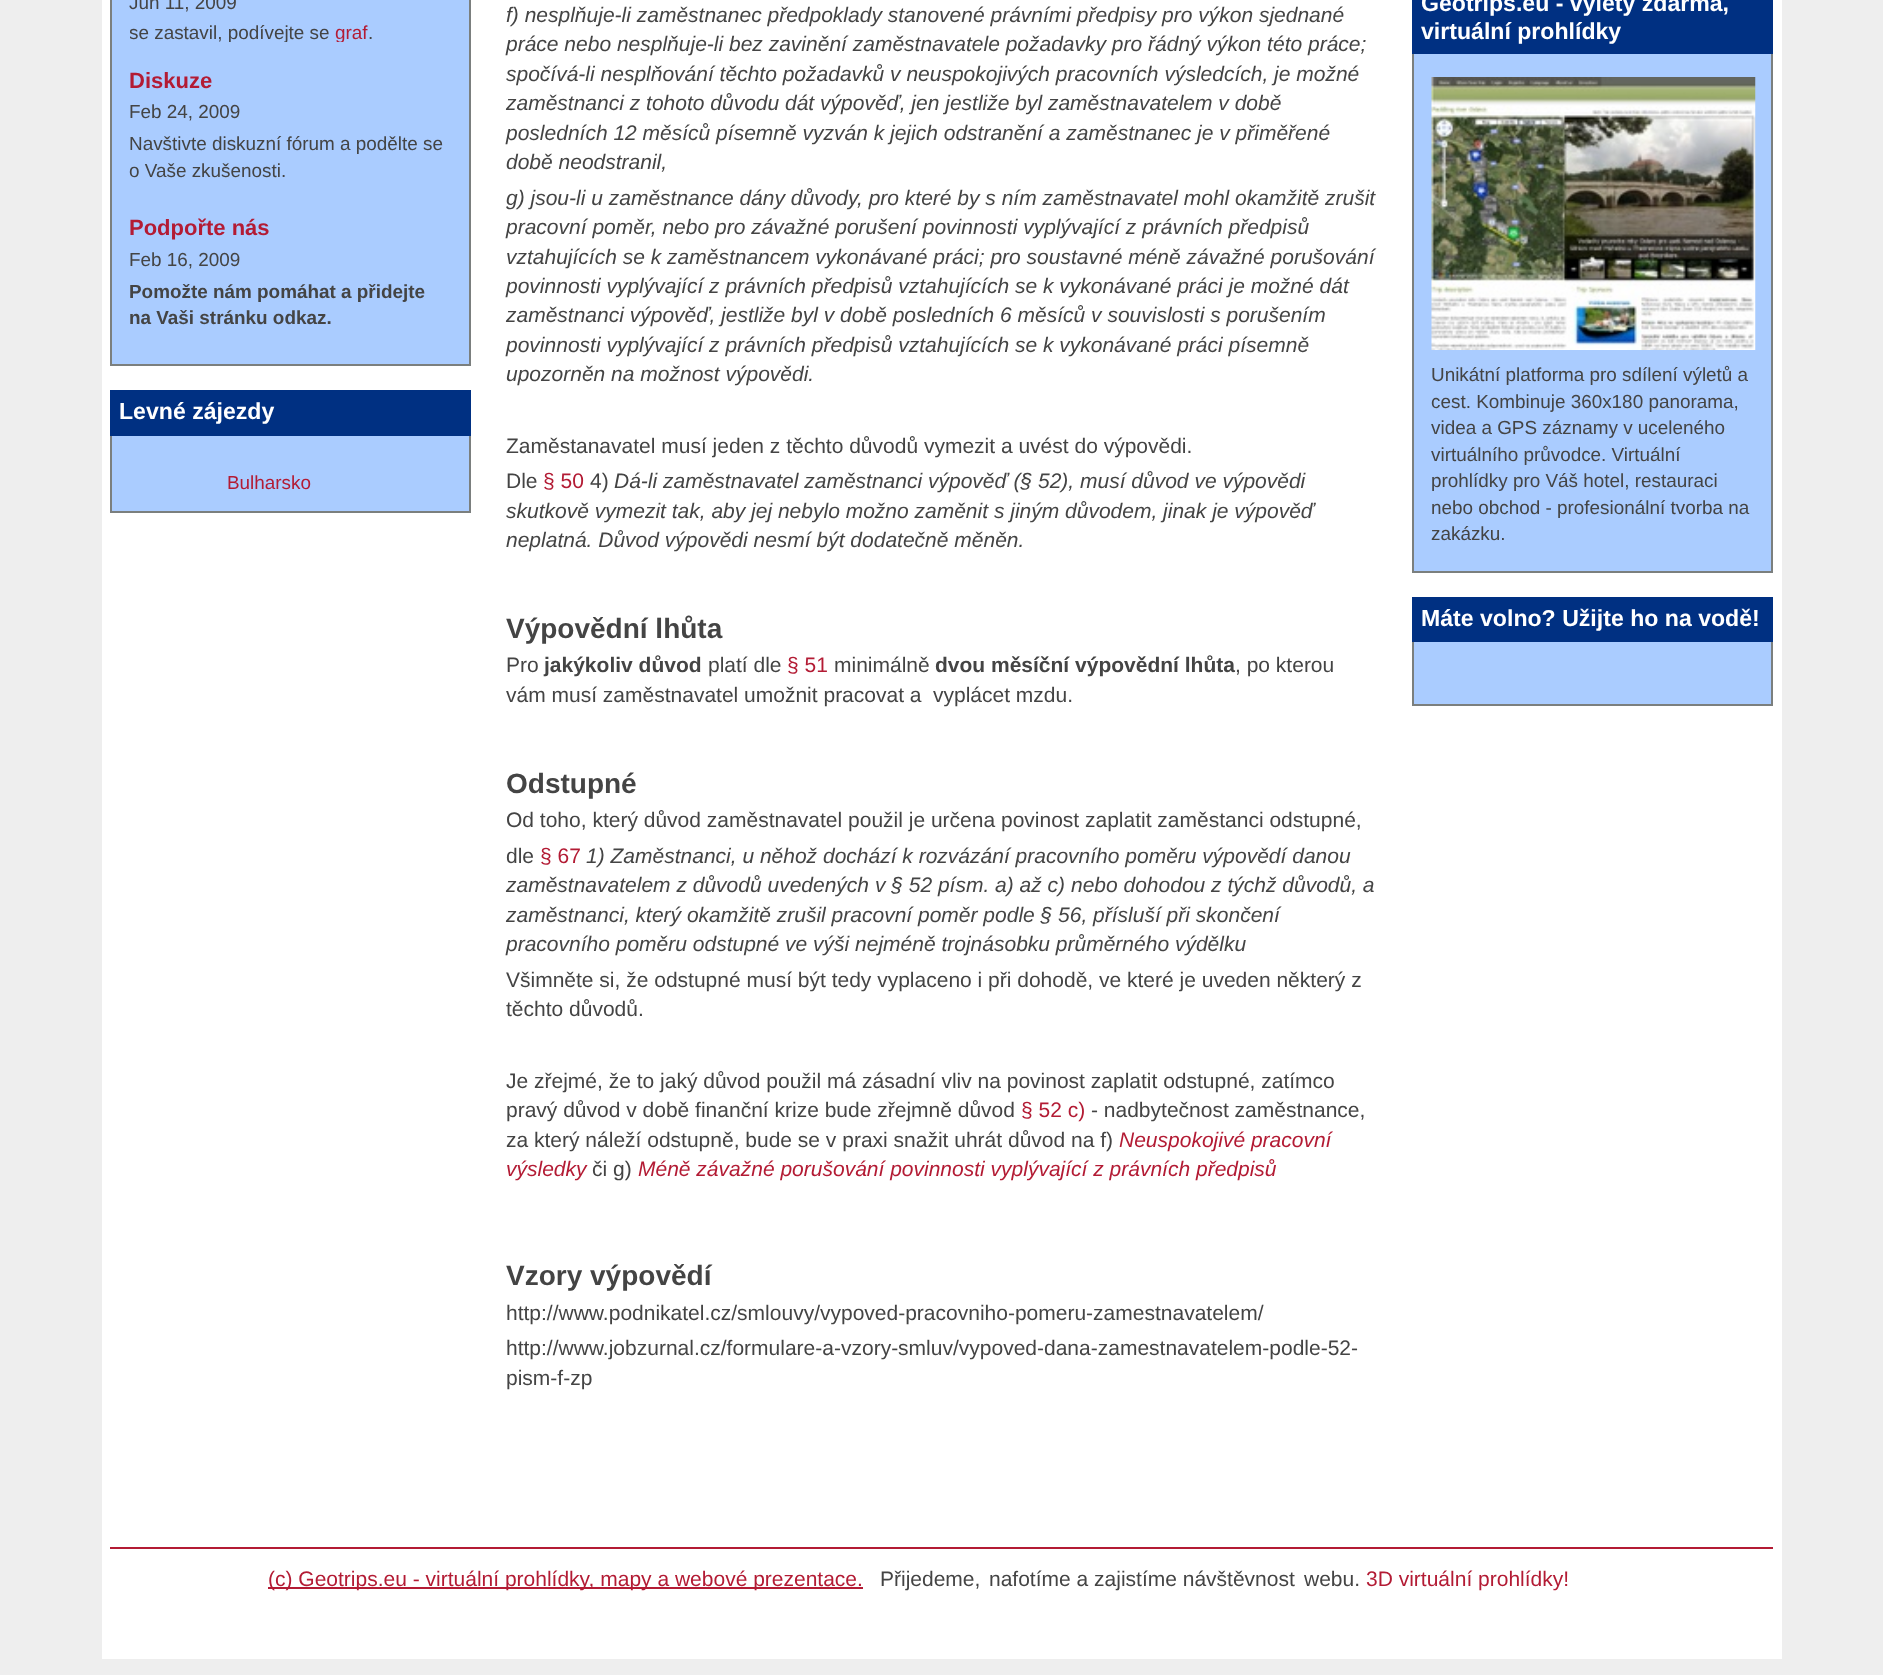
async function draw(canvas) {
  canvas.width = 1883
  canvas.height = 1675
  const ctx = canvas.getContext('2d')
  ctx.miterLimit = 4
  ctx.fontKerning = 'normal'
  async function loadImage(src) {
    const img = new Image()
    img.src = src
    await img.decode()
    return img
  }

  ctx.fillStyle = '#eee'
  ctx.fillRect(0, 0, 1883, 1675)
  ctx.fillStyle = '#fff'
  ctx.fillRect(102, 0, 1680, 1659)
  ctx.fillStyle = '#acf'
  ctx.fillRect(112, 0, 357, 364)
  ctx.fillStyle = '#7b7f7e'
  ctx.fillRect(469, 0, 2, 366)
  ctx.fillRect(110, 364, 361, 2)
  ctx.fillRect(110, 0, 2, 366)
  ctx.font = '18.9px Liberation Sans'
  ctx.fillStyle = '#444'
  ctx.fillText('Jun 11, 2009', 129, 9)
  ctx.save()
  ctx.beginPath()
  ctx.rect(130, 0, 322, 42)
  ctx.clip()
  ctx.fillText('se zastavil, podívejte se', 129, 39)
  ctx.fillStyle = '#b31b34'
  ctx.fillText('graf', 335, 39)
  ctx.restore()
  ctx.fillText('.', 368, 39)
  ctx.font = 'bold 22px Liberation Sans'
  ctx.fillStyle = '#b31b34'
  ctx.fillText('Diskuze', 129, 88)
  ctx.font = '18.9px Liberation Sans'
  ctx.fillStyle = '#444'
  ctx.fillText('Feb 24, 2009', 129, 118)
  ctx.fillText('Navštivte diskuzní fórum a podělte se', 129, 150)
  ctx.fillText('o Vaše zkušenosti.', 129, 177)
  ctx.font = 'bold 22px Liberation Sans'
  ctx.fillStyle = '#b31b34'
  ctx.fillText('Podpořte nás', 129, 235)
  ctx.font = '18.9px Liberation Sans'
  ctx.fillStyle = '#444'
  ctx.fillText('Feb 16, 2009', 129, 266)
  ctx.font = 'bold 18.9px Liberation Sans'
  ctx.fillText('Pomožte nám pomáhat a přidejte', 129, 298)
  ctx.fillText('na Vaši stránku odkaz.', 129, 324)
  ctx.fillStyle = '#acf'
  ctx.fillRect(112, 436, 357, 75)
  ctx.fillStyle = '#7b7f7e'
  ctx.fillRect(469, 436, 2, 77)
  ctx.fillRect(110, 511, 361, 2)
  ctx.fillRect(110, 436, 2, 77)
  ctx.fillStyle = '#003082'
  ctx.fillRect(110, 390, 361, 46)
  ctx.font = 'bold 23.1px Liberation Sans'
  ctx.fillStyle = '#fff'
  ctx.fillText('Levné zájezdy', 119, 419)
  ctx.font = '18.9px Liberation Sans'
  ctx.fillStyle = '#b31b34'
  ctx.fillText('Bulharsko', 227, 489)
  ctx.font = 'italic 21px Liberation Sans'
  ctx.fillStyle = '#444'
  ctx.fillText('f) nesplňuje-li zaměstnanec předpoklady stanovené právními předpisy pro výkon sjednané', 506, 22)
  ctx.fillText('práce nebo nesplňuje-li bez zavinění zaměstnavatele požadavky pro řádný výkon této práce;', 506, 51)
  ctx.fillText('spočívá-li nesplňování těchto požadavků v neuspokojivých pracovních výsledcích, je možné', 506, 81)
  ctx.fillText('zaměstnanci z tohoto důvodu dát výpověď, jen jestliže byl zaměstnavatelem v době', 506, 110)
  ctx.fillText('posledních 12 měsíců písemně vyzván k jejich odstranění a zaměstnanec je v přiměřené', 506, 140)
  ctx.fillText('době neodstranil,', 506, 169)
  ctx.fillText('g) jsou-li u zaměstnance dány důvody, pro které by s ním zaměstnavatel mohl okamžitě zrušit', 506, 205)
  ctx.fillText('pracovní poměr, nebo pro závažné porušení povinnosti vyplývající z právních předpisů', 506, 234)
  ctx.fillText('vztahujících se k zaměstnancem vykonávané práci; pro soustavné méně závažné porušování', 506, 264)
  ctx.fillText('povinnosti vyplývající z právních předpisů vztahujících se k vykonávané práci je možné dát', 506, 293)
  ctx.fillText('zaměstnanci výpověď, jestliže byl v době posledních 6 měsíců v souvislosti s porušením', 506, 322)
  ctx.fillText('povinnosti vyplývající z právních předpisů vztahujících se k vykonávané práci písemně', 506, 352)
  ctx.fillText('upozorněn na možnost výpovědi.', 506, 381)
  ctx.font = '21px Liberation Sans'
  ctx.fillText('Zaměstanavatel musí jeden z těchto důvodů vymezit a uvést do výpovědi.', 506, 453)
  ctx.fillText('Dle', 506, 488)
  ctx.fillStyle = '#b31b34'
  ctx.fillText('§ 50', 543, 488)
  ctx.fillStyle = '#444'
  ctx.fillText('4)', 590, 488)
  ctx.font = 'italic 21px Liberation Sans'
  ctx.fillText('Dá-li zaměstnavatel zaměstnanci výpověď (§ 52), musí důvod ve výpovědi', 614, 488)
  ctx.fillText('skutkově vymezit tak, aby jej nebylo možno zaměnit s jiným důvodem, jinak je výpověď', 506, 518)
  ctx.fillText('neplatná. Důvod výpovědi nesmí být dodatečně měněn.', 506, 547)
  ctx.font = 'bold 28px Liberation Sans'
  ctx.fillText('Výpovědní lhůta', 506, 638)
  ctx.font = '21px Liberation Sans'
  ctx.fillText('Pro', 506, 672)
  ctx.font = 'bold 21px Liberation Sans'
  ctx.fillText('jakýkoliv důvod', 544, 672)
  ctx.font = '21px Liberation Sans'
  ctx.fillText('platí dle', 708, 672)
  ctx.fillStyle = '#b31b34'
  ctx.fillText('§ 51', 787, 672)
  ctx.fillStyle = '#444'
  ctx.fillText('minimálně', 834, 672)
  ctx.font = 'bold 21px Liberation Sans'
  ctx.fillText('dvou měsíční výpovědní lhůta', 935, 672)
  ctx.font = '21px Liberation Sans'
  ctx.fillText(', po kterou', 1235, 672)
  ctx.fillText('vám musí zaměstnavatel umožnit pracovat a', 506, 702)
  ctx.fillText('vyplácet mzdu.', 933, 702)
  ctx.font = 'bold 28px Liberation Sans'
  ctx.fillText('Odstupné', 506, 793)
  ctx.font = '21px Liberation Sans'
  ctx.fillText('Od toho, který důvod zaměstnavatel použil je určena povinost zaplatit zaměstanci odstupné,', 506, 827)
  ctx.fillText('dle', 506, 863)
  ctx.fillStyle = '#b31b34'
  ctx.fillText('§ 67', 540, 863)
  ctx.font = 'italic 21px Liberation Sans'
  ctx.fillStyle = '#444'
  ctx.fillText('1) Zaměstnanci, u něhož dochází k rozvázání pracovního poměru výpovědí danou', 586, 863)
  ctx.fillText('zaměstnavatelem z důvodů uvedených v § 52 písm. a) až c) nebo dohodou z týchž důvodů, a', 506, 892)
  ctx.fillText('zaměstnanci, který okamžitě zrušil pracovní poměr podle § 56, přísluší při skončení', 506, 922)
  ctx.fillText('pracovního poměru odstupné ve výši nejméně trojnásobku průměrného výdělku', 506, 951)
  ctx.font = '21px Liberation Sans'
  ctx.fillText('Všimněte si, že odstupné musí být tedy vyplaceno i při dohodě, ve které je uveden některý z', 506, 987)
  ctx.fillText('těchto důvodů.', 506, 1016)
  ctx.fillText('Je zřejmé, že to jaký důvod použil má zásadní vliv na povinost zaplatit odstupné, zatímco', 506, 1088)
  ctx.fillText('pravý důvod v době finanční krize bude zřejmně důvod', 506, 1117)
  ctx.fillStyle = '#b31b34'
  ctx.fillText('§ 52 c)', 1021, 1117)
  ctx.fillStyle = '#444'
  ctx.fillText('- nadbytečnost zaměstnance,', 1091, 1117)
  ctx.fillText('za který náleží odstupně, bude se v praxi snažit uhrát důvod na f)', 506, 1147)
  ctx.font = 'italic 21px Liberation Sans'
  ctx.fillStyle = '#b31b34'
  ctx.fillText('Neuspokojivé pracovní', 1119, 1147)
  ctx.fillText('výsledky', 506, 1176)
  ctx.font = '21px Liberation Sans'
  ctx.fillStyle = '#444'
  ctx.fillText('či g)', 592, 1176)
  ctx.font = 'italic 21px Liberation Sans'
  ctx.fillStyle = '#b31b34'
  ctx.fillText('Méně závažné porušování povinnosti vyplývající z právních předpisů', 638, 1176)
  ctx.font = 'bold 28px Liberation Sans'
  ctx.fillStyle = '#444'
  ctx.fillText('Vzory výpovědí', 506, 1285)
  ctx.font = '21px Liberation Sans'
  ctx.fillText('http://www.podnikatel.cz/smlouvy/vypoved-pracovniho-pomeru-zamestnavatelem/', 506, 1320)
  ctx.fillText('http://www.jobzurnal.cz/formulare-a-vzory-smluv/vypoved-dana-zamestnavatelem-podle-52-', 506, 1355)
  ctx.fillText('pism-f-zp', 506, 1385)
  ctx.fillStyle = '#acf'
  ctx.fillRect(1414, 54, 357, 517)
  ctx.fillStyle = '#7b7f7e'
  ctx.fillRect(1771, 54, 2, 518)
  ctx.fillRect(1412, 571, 361, 2)
  ctx.fillRect(1412, 54, 2, 518)
  ctx.fillStyle = '#003082'
  ctx.fillRect(1412, 0, 361, 54)
  ctx.font = 'bold 23.1px Liberation Sans'
  ctx.fillStyle = '#fff'
  ctx.fillText('Geotrips.eu - výlety zdarma,', 1421, 11)
  ctx.fillText('virtuální prohlídky', 1421, 39)
  ctx.drawImage(await loadImage('image0.png'), 1431, 77, 325, 273)
  ctx.font = '18.9px Liberation Sans'
  ctx.fillStyle = '#444'
  ctx.fillText('Unikátní platforma pro sdílení výletů a', 1431, 381)
  ctx.fillText('cest. Kombinuje 360x180 panorama,', 1431, 408)
  ctx.fillText('videa a GPS záznamy v uceleného', 1431, 434)
  ctx.fillText('virtuálního průvodce. Virtuální', 1431, 461)
  ctx.fillText('prohlídky pro Váš hotel, restauraci', 1431, 487)
  ctx.fillText('nebo obchod - profesionální tvorba na', 1431, 514)
  ctx.fillText('zakázku.', 1431, 540)
  ctx.fillStyle = '#acf'
  ctx.fillRect(1414, 642, 357, 62)
  ctx.fillStyle = '#7b7f7e'
  ctx.fillRect(1771, 642, 2, 63)
  ctx.fillRect(1412, 704, 361, 2)
  ctx.fillRect(1412, 642, 2, 63)
  ctx.fillStyle = '#003082'
  ctx.fillRect(1412, 597, 361, 45)
  ctx.font = 'bold 23.1px Liberation Sans'
  ctx.fillStyle = '#fff'
  ctx.fillText('Máte volno? Užijte ho na vodě!', 1421, 626)
  ctx.fillStyle = '#b31b34'
  ctx.fillRect(110, 1547, 1663, 2)
  ctx.fillRect(268, 1587, 595, 2)
  ctx.font = '21px Liberation Sans'
  ctx.fillText('(c) Geotrips.eu - virtuální prohlídky, mapy a webové prezentace.', 268, 1586)
  ctx.fillStyle = '#444'
  ctx.fillText('Přijedeme,', 880, 1586)
  ctx.fillText('nafotíme a zajistíme návštěvnost', 989, 1586)
  ctx.fillText('webu.', 1304, 1586)
  ctx.fillStyle = '#b31b34'
  ctx.fillText('3D virtuální prohlídky!', 1366, 1586)
}

draw(document.querySelector('canvas'))
